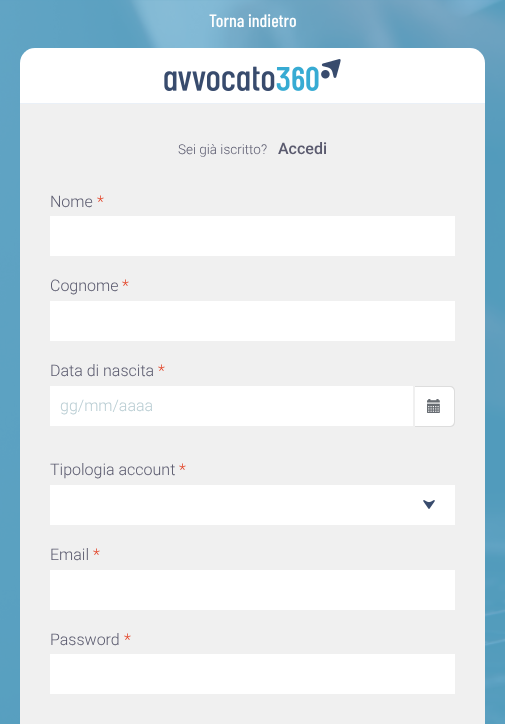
async function draw(canvas) {
  canvas.width = 505
  canvas.height = 724
  const ctx = canvas.getContext('2d')
  ctx.miterLimit = 4
  ctx.fontKerning = 'normal'
  async function loadImage(src) {
    const img = new Image()
    img.src = src
    await img.decode()
    return img
  }

  ctx.fillStyle = '#fff'
  ctx.fillRect(0, 0, 505, 724)
  ctx.drawImage(await loadImage('image0.png'), 0, 0, 505, 724)
  ctx.font = '500 18px Barlow Condensed'
  ctx.fillText('Torna indietro', 209, 27)
  ctx.beginPath()
  ctx.roundRect(20, 48, 465, 56, [15, 15, 0, 0])
  ctx.fill()
  ctx.fillStyle = '#eaf0f7'
  ctx.fillRect(20, 103, 465, 1)
  ctx.drawImage(await loadImage('image1.png'), 164, 59, 177, 32)
  ctx.fillStyle = '#f0f0f0'
  ctx.fillRect(20, 104, 465, 620)
  ctx.font = '300 13.5px Roboto'
  ctx.fillStyle = '#5a5a6e'
  ctx.fillText('Sei già iscritto?', 178, 154)
  ctx.font = '500 16px Roboto'
  ctx.fillText('Accedi', 278, 154)
  ctx.font = '300 16px Roboto'
  ctx.fillText('Nome', 50, 207)
  ctx.fillStyle = '#e3472b'
  ctx.fillText('*', 97, 207)
  ctx.fillStyle = '#fff'
  ctx.fillRect(50, 216, 405, 40)
  ctx.fillStyle = '#5a5a6e'
  ctx.fillText('Cognome', 50, 291)
  ctx.fillStyle = '#e3472b'
  ctx.fillText('*', 122, 291)
  ctx.fillStyle = '#fff'
  ctx.fillRect(50, 301, 405, 40)
  ctx.fillStyle = '#5a5a6e'
  ctx.fillText('Data di nascita', 50, 376)
  ctx.fillStyle = '#e3472b'
  ctx.fillText('*', 158, 376)
  ctx.fillStyle = '#fff'
  ctx.fillRect(50, 386, 363, 40)
  ctx.fillStyle = '#b9cdd3'
  ctx.fillText('gg/mm/aaaa', 60, 411)
  ctx.fillStyle = '#fff'
  ctx.beginPath()
  ctx.roundRect(415, 387, 39, 39, [0, 4, 4, 0])
  ctx.fill()
  ctx.fillStyle = '#ddd'
  ctx.beginPath()
  ctx.moveTo(415, 386)
  ctx.lineTo(450, 386)
  ctx.bezierCurveTo(453, 386, 455, 388, 455, 391)
  ctx.lineTo(455, 422)
  ctx.bezierCurveTo(455, 425, 453, 427, 450, 427)
  ctx.lineTo(415, 427)
  ctx.closePath()
  ctx.moveTo(415, 387)
  ctx.lineTo(450, 387)
  ctx.bezierCurveTo(452, 387, 454, 389, 454, 391)
  ctx.lineTo(454, 422)
  ctx.bezierCurveTo(454, 424, 452, 426, 450, 426)
  ctx.lineTo(415, 426)
  ctx.closePath()
  ctx.fill('evenodd')
  ctx.drawImage(await loadImage('image2.png'), 427, 399, 13, 14)
  ctx.fillStyle = '#5a5a6e'
  ctx.fillText('Tipologia account', 50, 475)
  ctx.fillStyle = '#e3472b'
  ctx.fillText('*', 179, 475)
  ctx.fillStyle = '#fff'
  ctx.fillRect(50, 485, 405, 40)
  ctx.drawImage(await loadImage('image3.png'), 423, 500, 12, 9)
  ctx.fillStyle = '#5a5a6e'
  ctx.fillText('Email', 50, 560)
  ctx.fillStyle = '#e3472b'
  ctx.fillText('*', 93, 560)
  ctx.fillStyle = '#fff'
  ctx.fillRect(50, 570, 405, 40)
  ctx.fillStyle = '#5a5a6e'
  ctx.fillText('Password', 50, 645)
  ctx.fillStyle = '#e3472b'
  ctx.fillText('*', 124, 645)
  ctx.fillStyle = '#fff'
  ctx.fillRect(50, 654, 405, 40)
}

draw(document.querySelector('canvas'))
